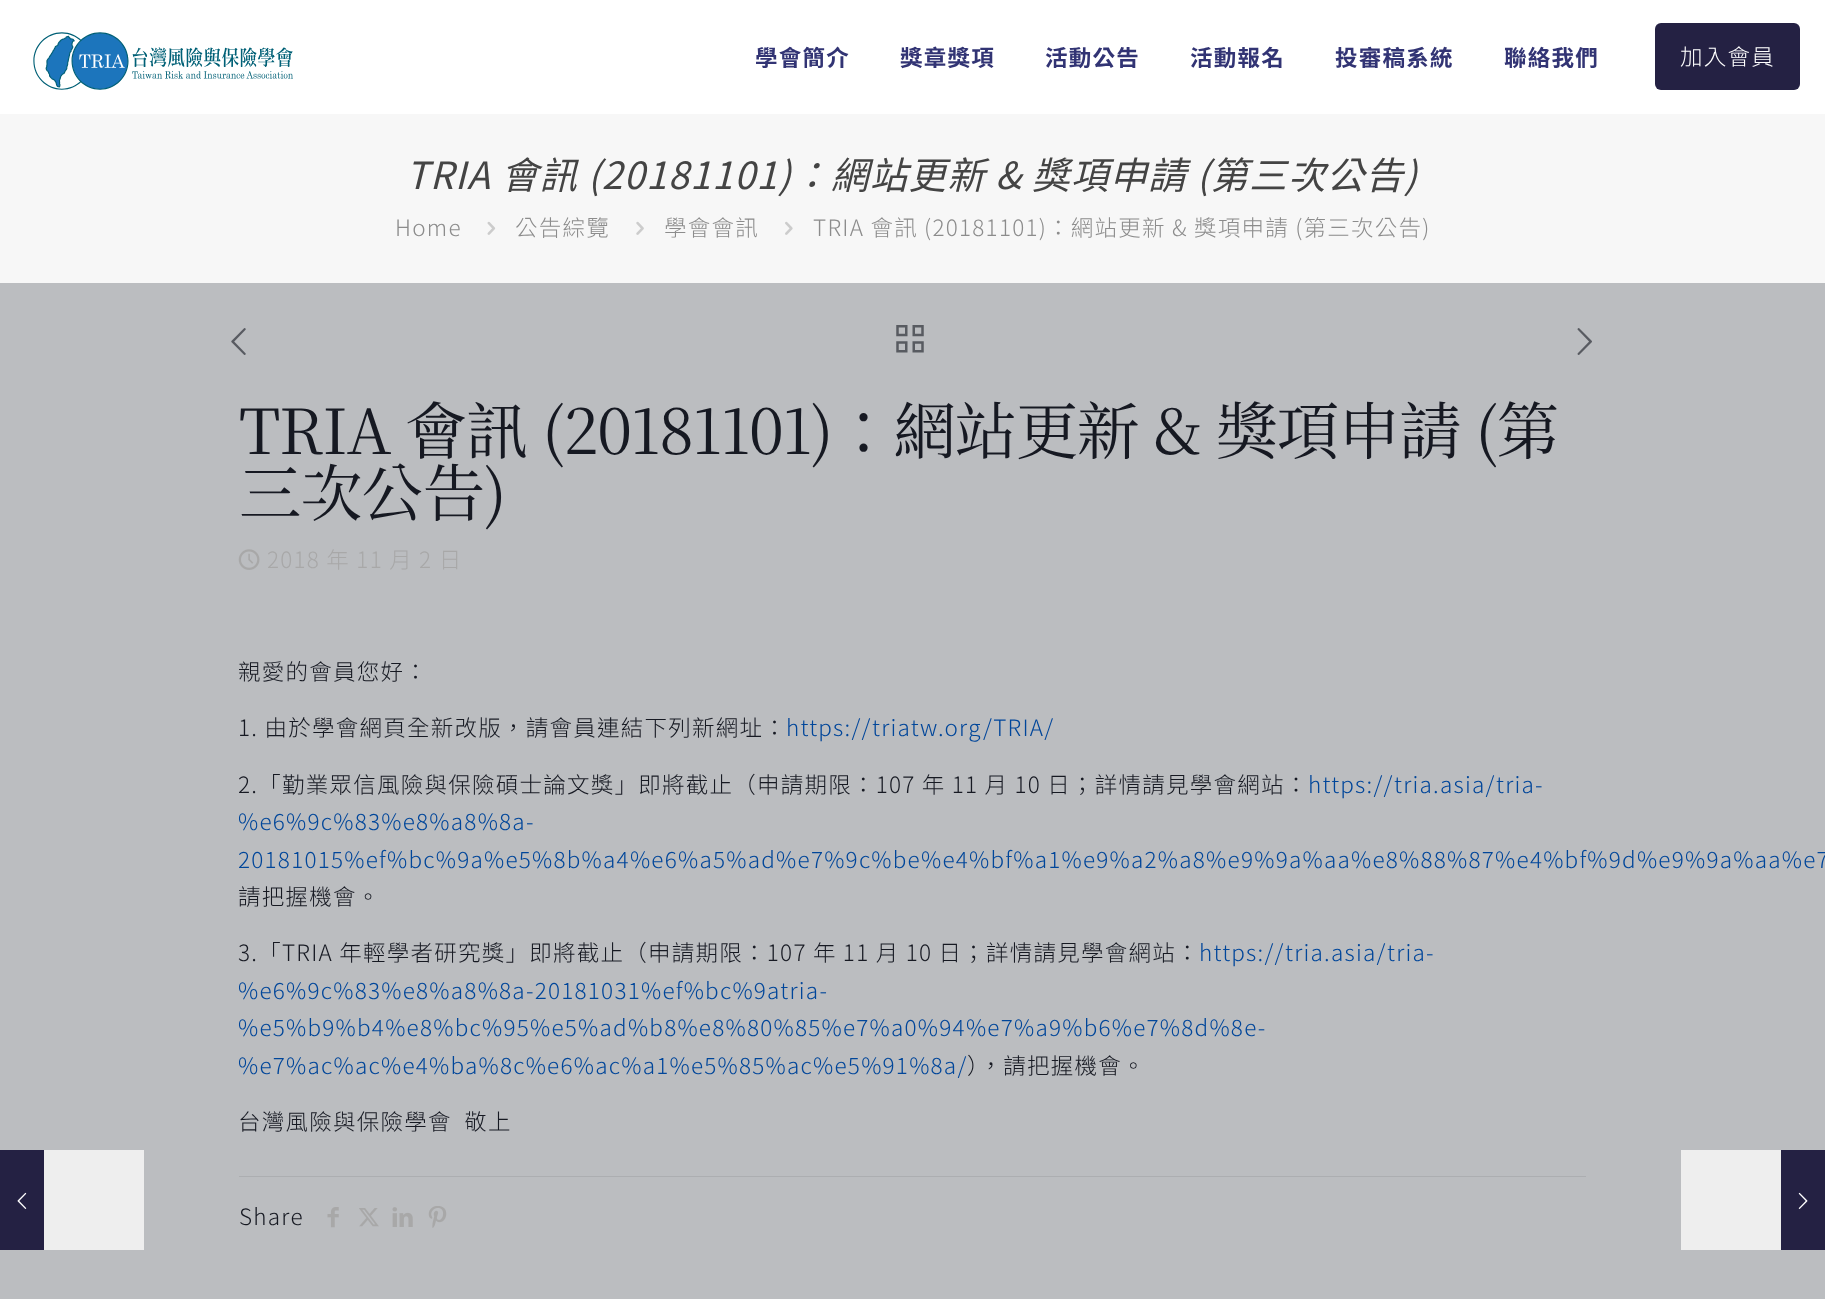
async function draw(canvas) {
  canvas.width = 1825
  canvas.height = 1299
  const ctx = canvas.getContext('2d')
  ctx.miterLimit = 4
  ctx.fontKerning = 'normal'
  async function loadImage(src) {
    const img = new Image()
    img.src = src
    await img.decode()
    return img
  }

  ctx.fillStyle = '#bbbdc0'
  ctx.fillRect(0, 0, 1825, 1299)
  ctx.fillStyle = '#242143'
  ctx.fillRect(0, 1150, 44, 100)
  ctx.drawImage(await loadImage('image0.png'), 17, 1192, 10, 17)
  ctx.fillStyle = '#eee'
  ctx.fillRect(44, 1150, 100, 100)
  ctx.fillStyle = '#fff'
  ctx.fillRect(0, 0, 1825, 114)
  ctx.drawImage(await loadImage('image1.png'), 33, 32, 260, 58)
  ctx.letterSpacing = '1.25px'
  ctx.font = 'bold 22.5px Noto Sans TC'
  ctx.fillStyle = '#323474'
  ctx.fillText('學會簡介', 755, 66)
  ctx.fillText('獎章獎項', 900, 66)
  ctx.fillText('活動公告', 1045, 66)
  ctx.fillText('活動報名', 1190, 66)
  ctx.fillText('投審稿系統', 1335, 66)
  ctx.fillText('聯絡我們', 1504, 66)
  ctx.fillStyle = '#242143'
  ctx.beginPath()
  ctx.roundRect(1655, 23, 145, 67, 6)
  ctx.fill()
  ctx.font = '300 22.5px Noto Sans TC'
  ctx.fillStyle = '#fff'
  ctx.fillText('加入會員', 1680, 65)
  ctx.fillStyle = '#f7f7f7'
  ctx.fillRect(0, 114, 1825, 169)
  ctx.font = 'italic 37.5px Noto Sans TC'
  ctx.fillStyle = '#444'
  ctx.fillText('TRIA 會訊 (20181101)：網站更新 & 獎項申請 (第三次公告)', 406, 189)
  ctx.font = '300 22.5px Noto Sans TC'
  ctx.fillStyle = '#8c8c8c'
  ctx.fillText('Home', 395, 236)
  ctx.drawImage(await loadImage('image2.png'), 487, 221, 9, 14)
  ctx.fillText('公告綜覽', 515, 236)
  ctx.drawImage(await loadImage('image3.png'), 636, 221, 8, 14)
  ctx.fillText('學會會訊', 664, 236)
  ctx.drawImage(await loadImage('image4.png'), 785, 221, 8, 14)
  ctx.fillText('TRIA 會訊 (20181101)：網站更新 & 獎項申請 (第三次公告)', 813, 236)
  ctx.drawImage(await loadImage('image5.png'), 231, 328, 15, 27)
  ctx.drawImage(await loadImage('image6.png'), 896, 325, 28, 28)
  ctx.drawImage(await loadImage('image7.png'), 1577, 328, 15, 27)
  ctx.letterSpacing = '-1.25px'
  ctx.font = '62.5px Noto Serif TC'
  ctx.fillStyle = '#161922'
  ctx.fillText('TRIA 會訊 (20181101)：網站更新 & 獎項申請 (第', 239, 454)
  ctx.fillText('三次公告)', 239, 516)
  ctx.drawImage(await loadImage('image8.png'), 238, 549, 22, 21)
  ctx.letterSpacing = '1.25px'
  ctx.font = '300 22.5px Noto Sans TC'
  ctx.fillStyle = '#a8a8a8'
  ctx.fillText('2018 年 11 月 2 日', 267, 568)
  ctx.fillStyle = '#161922'
  ctx.fillText('親愛的會員您好：', 238, 680)
  ctx.fillText('1. 由於學會網頁全新改版，請會員連結下列新網址：', 238, 736)
  ctx.fillStyle = '#00469a'
  ctx.fillText('https://triatw.org/TRIA/', 786, 736)
  ctx.fillStyle = '#161922'
  ctx.fillText('2.「勤業眾信風險與保險碩士論文獎」即將截止（申請期限：107 年 11 月 10 日；詳情請見學會網站：', 238, 793)
  ctx.fillStyle = '#00469a'
  ctx.fillText('https://tria.asia/tria-', 1308, 793)
  ctx.fillText('%e6%9c%83%e8%a8%8a-', 238, 830)
  ctx.fillText('20181015%ef%bc%9a%e5%8b%a4%e6%a5%ad%e7%9c%be%e4%bf%a1%e9%a2%a8%e9%9a%aa%e8%88%87%e4%bf%9d%e9%9a%aa%e7', 238, 868)
  ctx.fillStyle = '#161922'
  ctx.fillText('請把握機會。', 238, 905)
  ctx.fillText('3.「TRIA 年輕學者研究獎」即將截止（申請期限：107 年 11 月 10 日；詳情請見學會網站：', 238, 961)
  ctx.fillStyle = '#00469a'
  ctx.fillText('https://tria.asia/tria-', 1199, 961)
  ctx.fillText('%e6%9c%83%e8%a8%8a-20181031%ef%bc%9atria-', 238, 999)
  ctx.fillText('%e5%b9%b4%e8%bc%95%e5%ad%b8%e8%80%85%e7%a0%94%e7%a9%b6%e7%8d%8e-', 238, 1036)
  ctx.fillText('%e7%ac%ac%e4%ba%8c%e6%ac%a1%e5%85%ac%e5%91%8a/', 238, 1074)
  ctx.fillStyle = '#161922'
  ctx.fillText('），請把握機會。', 967, 1074)
  ctx.fillText('台灣風險與保險學會  敬上', 238, 1130)
  ctx.fillStyle = '#acaeb1'
  ctx.fillRect(239, 1176, 1347, 1)
  ctx.fillStyle = '#161922'
  ctx.fillText('Share', 239, 1225)
  ctx.drawImage(await loadImage('image9.png'), 327, 1207, 12, 21)
  ctx.drawImage(await loadImage('image10.png'), 359, 1208, 20, 19)
  ctx.drawImage(await loadImage('image11.png'), 392, 1207, 21, 20)
  ctx.drawImage(await loadImage('image12.png'), 428, 1206, 19, 22)
  ctx.fillStyle = '#eee'
  ctx.fillRect(1681, 1150, 100, 100)
  ctx.fillStyle = '#242143'
  ctx.fillRect(1781, 1150, 44, 100)
  ctx.drawImage(await loadImage('image13.png'), 1798, 1192, 10, 17)
}

draw(document.querySelector('canvas'))
